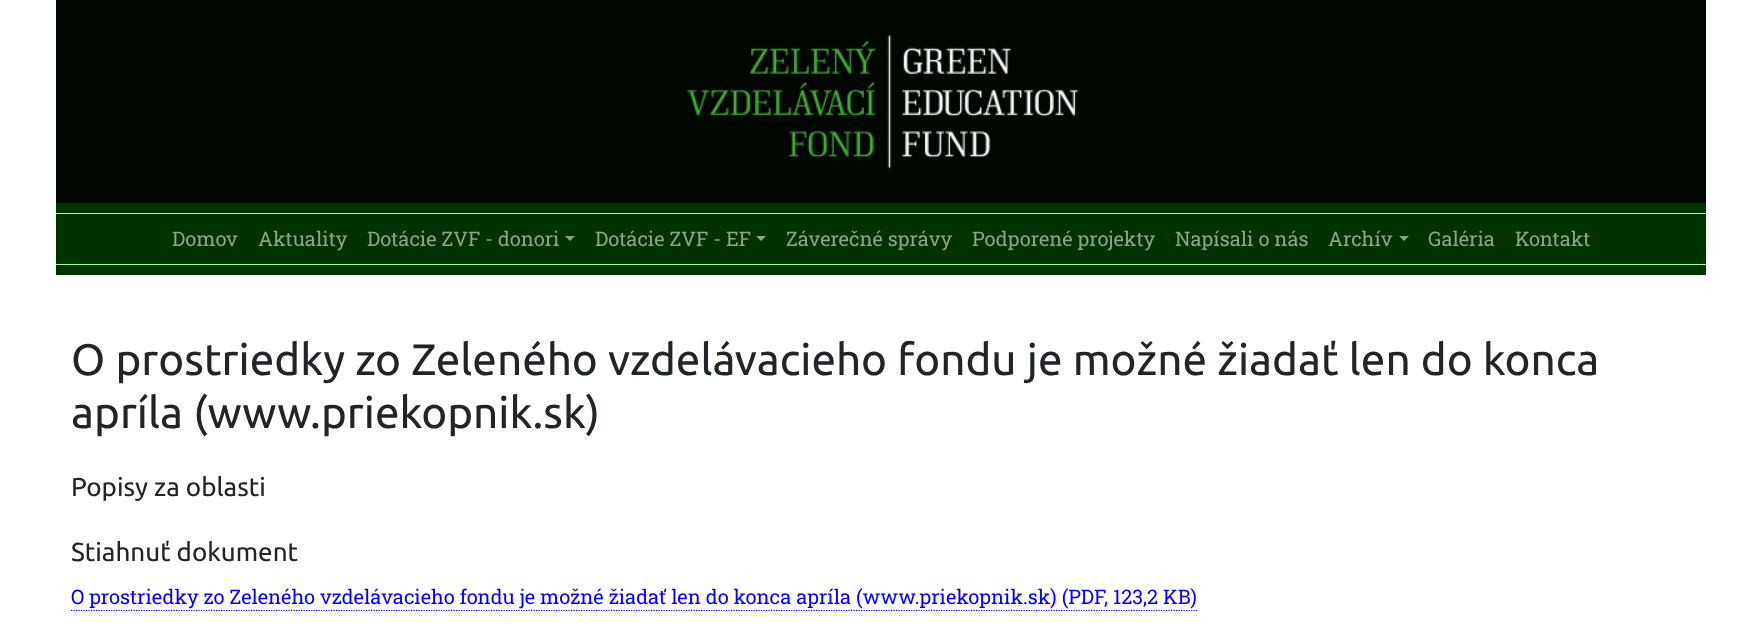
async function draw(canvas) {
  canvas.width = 1762
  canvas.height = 629
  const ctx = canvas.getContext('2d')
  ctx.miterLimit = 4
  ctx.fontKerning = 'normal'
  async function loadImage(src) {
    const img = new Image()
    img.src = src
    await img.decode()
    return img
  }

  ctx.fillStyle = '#fff'
  ctx.fillRect(0, 0, 1762, 629)
  ctx.fillStyle = '#000700'
  ctx.fillRect(56, 0, 1650, 203)
  ctx.drawImage(await loadImage('image0.png'), 686, 35, 393, 134)
  ctx.fillStyle = '#030'
  ctx.fillRect(56, 203, 1650, 72)
  ctx.fillStyle = '#9f9'
  ctx.fillRect(56, 213, 1650, 1)
  ctx.fillRect(56, 264, 1650, 1)
  ctx.font = '20px Roboto Slab'
  ctx.fillStyle = '#8ca38c'
  ctx.fillText('Domov', 172, 246)
  ctx.fillText('Aktuality', 258, 246)
  ctx.fillText('Dotácie ZVF - donori', 367, 246)
  ctx.beginPath()
  ctx.moveTo(565, 236)
  ctx.lineTo(575, 236)
  ctx.lineTo(570, 241)
  ctx.closePath()
  ctx.fill()
  ctx.fillText('Dotácie ZVF - EF', 595, 246)
  ctx.beginPath()
  ctx.moveTo(756, 236)
  ctx.lineTo(766, 236)
  ctx.lineTo(761, 241)
  ctx.closePath()
  ctx.fill()
  ctx.fillText('Záverečné správy', 786, 246)
  ctx.fillText('Podporené projekty', 972, 246)
  ctx.fillText('Napísali o nás', 1175, 246)
  ctx.fillText('Archív', 1328, 246)
  ctx.beginPath()
  ctx.moveTo(1399, 236)
  ctx.lineTo(1409, 236)
  ctx.lineTo(1404, 241)
  ctx.closePath()
  ctx.fill()
  ctx.fillText('Galéria', 1428, 246)
  ctx.fillText('Kontakt', 1515, 246)
  ctx.font = '44px Ubuntu'
  ctx.fillStyle = '#212529'
  ctx.fillText('O prostriedky zo Zeleného vzdelávacieho fondu je možné žiadať len do konca', 71, 375)
  ctx.fillText('apríla (www.priekopnik.sk)', 71, 428)
  ctx.font = '26px Ubuntu'
  ctx.fillText('Popisy za oblasti', 71, 496)
  ctx.fillText('Stiahnuť dokument', 71, 561)
  ctx.font = '20px Roboto Slab'
  ctx.fillStyle = '#00f'
  ctx.fillText('O prostriedky zo Zeleného vzdelávacieho fondu je možné žiadať len do konca apríla (www.priekopnik.sk) (PDF, 123,2 KB)', 71, 604)
  ctx.beginPath()
  ctx.moveTo(71, 610.5)
  ctx.lineTo(1197.5, 610.5)
  ctx.strokeStyle = '#00f'
  ctx.lineWidth = 1.2
  ctx.setLineDash([1.25, 1.25])
  ctx.stroke()
}

draw(document.querySelector('canvas'))
